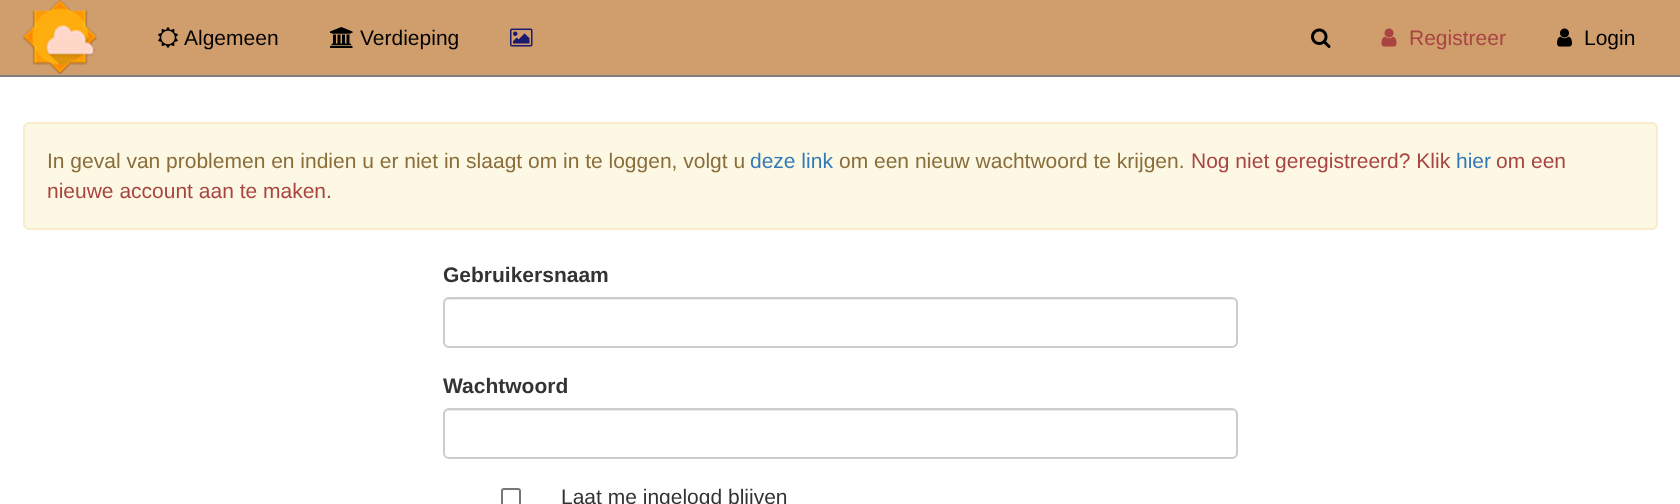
async function draw(canvas) {
  canvas.width = 1680
  canvas.height = 504
  const ctx = canvas.getContext('2d')
  ctx.miterLimit = 4
  ctx.fontKerning = 'normal'
  async function loadImage(src) {
    const img = new Image()
    img.src = src
    await img.decode()
    return img
  }

  ctx.fillStyle = '#fff'
  ctx.fillRect(0, 0, 1680, 504)
  ctx.fillStyle = '#d09e6d'
  ctx.fillRect(0, 0, 1680, 75)
  ctx.fillStyle = '#808080'
  ctx.fillRect(0, 75, 1680, 2)
  ctx.drawImage(await loadImage('image0.png'), 22, 0, 76, 74)
  ctx.drawImage(await loadImage('image1.png'), 158, 27, 20, 21)
  ctx.font = '21px Liberation Sans'
  ctx.fillStyle = '#000'
  ctx.fillText('Algemeen', 184, 45)
  ctx.drawImage(await loadImage('image2.png'), 330, 27, 23, 21)
  ctx.fillText('Verdieping', 360, 45)
  ctx.drawImage(await loadImage('image3.png'), 510, 28, 23, 19)
  ctx.drawImage(await loadImage('image4.png'), 1311, 28, 20, 20)
  ctx.drawImage(await loadImage('image5.png'), 1381, 28, 16, 19)
  ctx.fillStyle = '#a94442'
  ctx.fillText('Registreer', 1409, 45)
  ctx.drawImage(await loadImage('image6.png'), 1557, 28, 15, 19)
  ctx.fillStyle = '#000'
  ctx.fillText('Login', 1584, 45)
  ctx.fillStyle = '#fcf8e3'
  ctx.beginPath()
  ctx.roundRect(24, 123, 1633, 106, 5)
  ctx.fill()
  ctx.strokeStyle = '#faebcc'
  ctx.lineWidth = 2
  ctx.stroke()
  ctx.fillStyle = '#8a6d3b'
  ctx.fillText('In geval van problemen en indien u er niet in slaagt om in te loggen, volgt u', 47, 168)
  ctx.fillStyle = '#337ab7'
  ctx.fillText('deze link', 750, 168)
  ctx.fillStyle = '#8a6d3b'
  ctx.fillText('om een nieuw wachtwoord te krijgen.', 839, 168)
  ctx.fillStyle = '#a94442'
  ctx.fillText('Nog niet geregistreerd? Klik', 1191, 168)
  ctx.fillStyle = '#337ab7'
  ctx.fillText('hier', 1456, 168)
  ctx.fillStyle = '#a94442'
  ctx.fillText('om een', 1496, 168)
  ctx.fillText('nieuwe account aan te maken.', 47, 198)
  ctx.font = 'bold 21px Liberation Sans'
  ctx.fillStyle = '#333'
  ctx.fillText('Gebruikersnaam', 443, 282)
  ctx.fillStyle = '#ececec'
  ctx.beginPath()
  ctx.moveTo(448, 300)
  ctx.lineTo(1232, 300)
  ctx.bezierCurveTo(1234, 300, 1236, 302, 1236, 304)
  ctx.bezierCurveTo(1236, 301, 1234, 299, 1231, 299)
  ctx.lineTo(449, 299)
  ctx.bezierCurveTo(446, 299, 444, 301, 444, 304)
  ctx.bezierCurveTo(444, 302, 446, 300, 448, 300)
  ctx.closePath()
  ctx.fill()
  ctx.beginPath()
  ctx.roundRect(444, 298, 793, 49, 5)
  ctx.strokeStyle = '#ccc'
  ctx.stroke()
  ctx.fillStyle = '#333'
  ctx.fillText('Wachtwoord', 443, 393)
  ctx.fillStyle = '#ececec'
  ctx.beginPath()
  ctx.moveTo(448, 411)
  ctx.lineTo(1232, 411)
  ctx.bezierCurveTo(1234, 411, 1236, 413, 1236, 416)
  ctx.lineTo(1236, 415)
  ctx.bezierCurveTo(1236, 412, 1234, 410, 1231, 410)
  ctx.lineTo(449, 410)
  ctx.bezierCurveTo(446, 410, 444, 412, 444, 415)
  ctx.lineTo(444, 416)
  ctx.bezierCurveTo(444, 413, 446, 411, 448, 411)
  ctx.closePath()
  ctx.fill()
  ctx.beginPath()
  ctx.roundRect(444, 409, 793, 49, 5)
  ctx.stroke()
  ctx.beginPath()
  ctx.roundRect(502, 489, 18, 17, 2)
  ctx.strokeStyle = '#767676'
  ctx.stroke()
  ctx.font = '21px Liberation Sans'
  ctx.fillStyle = '#333'
  ctx.fillText('Laat me ingelogd blijven', 561, 504)
}

draw(document.querySelector('canvas'))
